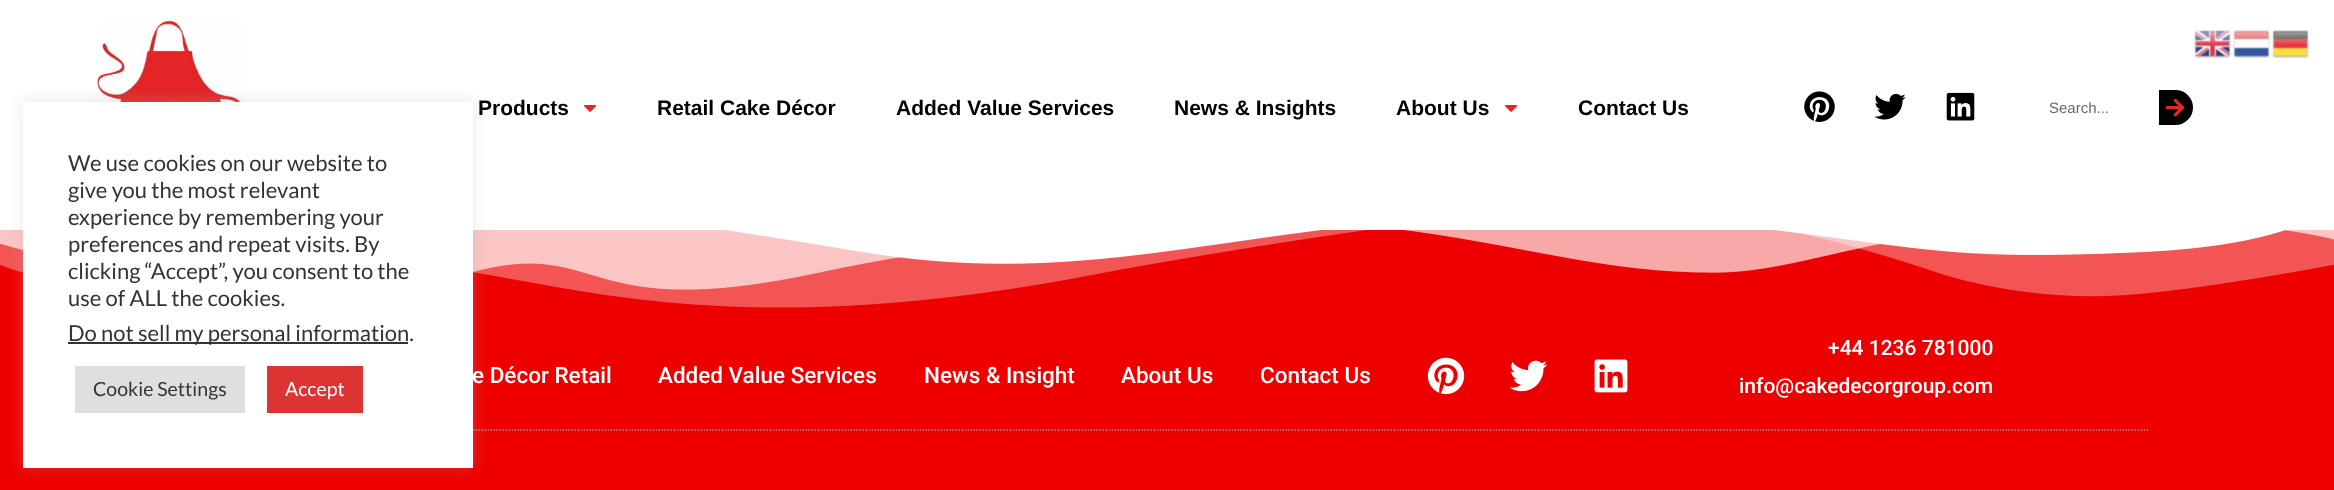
async function draw(canvas) {
  canvas.width = 2334
  canvas.height = 490
  const ctx = canvas.getContext('2d')
  ctx.miterLimit = 4
  ctx.fontKerning = 'normal'
  async function loadImage(src) {
    const img = new Image()
    img.src = src
    await img.decode()
    return img
  }

  ctx.fillStyle = '#e00'
  ctx.fillRect(0, 0, 2334, 490)
  ctx.fillStyle = '#fff'
  ctx.fillRect(0, 0, 2334, 230)
  ctx.drawImage(await loadImage('image0.png'), 2194, 30, 37, 29)
  ctx.drawImage(await loadImage('image1.png'), 2233, 30, 37, 29)
  ctx.drawImage(await loadImage('image2.png'), 2272, 30, 37, 29)
  ctx.drawImage(await loadImage('image3.png'), 97, 20, 150, 82)
  ctx.font = 'bold 21px Liberation Sans'
  ctx.fillStyle = '#000'
  ctx.fillText('Products', 478, 115)
  ctx.drawImage(await loadImage('image4.png'), 584, 105, 13, 7)
  ctx.fillText('Retail Cake Décor', 657, 115)
  ctx.fillText('Added Value Services', 896, 115)
  ctx.fillText('News & Insights', 1174, 115)
  ctx.fillText('About Us', 1396, 115)
  ctx.drawImage(await loadImage('image4.png'), 1505, 105, 13, 7)
  ctx.fillText('Contact Us', 1578, 115)
  ctx.drawImage(await loadImage('image5.png'), 1804, 91, 31, 31)
  ctx.drawImage(await loadImage('image6.png'), 1874, 93, 32, 27)
  ctx.drawImage(await loadImage('image7.png'), 1946, 92, 29, 29)
  ctx.font = '15px Liberation Sans'
  ctx.fillStyle = '#696969'
  ctx.fillText('Search...', 2049, 113)
  ctx.fillStyle = '#000'
  ctx.beginPath()
  ctx.roundRect(2159, 90, 34, 35, [0, 17.5, 17.5, 0])
  ctx.fill()
  ctx.drawImage(await loadImage('image8.png'), 2166, 98, 19, 19)
  ctx.drawImage(await loadImage('image9.png'), 0, 230, 2334, 78)
  ctx.beginPath()
  ctx.moveTo(187.5, 430)
  ctx.lineTo(2148, 430)
  ctx.strokeStyle = '#9b9b9b'
  ctx.lineWidth = 1.5
  ctx.setLineDash([1.5, 1.5])
  ctx.stroke()
  ctx.fillStyle = '#acabab4d'
  ctx.filter = 'blur(7.5px)'
  ctx.beginPath()
  ctx.rect(23, 101, 450, 366)
  ctx.fill()
  ctx.filter = 'none'
  ctx.fillStyle = '#fff'
  ctx.fillRect(23, 102, 450, 366)
  ctx.font = '22px Lato'
  ctx.fillStyle = '#333'
  ctx.fillText('We use cookies on our website to', 68, 171)
  ctx.fillText('give you the most relevant', 68, 198)
  ctx.fillText('experience by remembering your', 68, 225)
  ctx.fillText('preferences and repeat visits. By', 68, 252)
  ctx.fillText('clicking “Accept”, you consent to the', 68, 279)
  ctx.fillText('use of ALL the cookies.', 68, 306)
  ctx.fillRect(68, 342, 340, 2)
  ctx.fillText('Do not sell my personal information.', 68, 341)
  ctx.fillStyle = '#dedfe0'
  ctx.fillRect(75, 366, 170, 47)
  ctx.font = '19.5px Lato'
  ctx.fillStyle = '#333'
  ctx.fillText('Cookie Settings', 93, 396)
  ctx.fillStyle = '#d33'
  ctx.fillRect(267, 366, 96, 47)
  ctx.fillStyle = '#fff'
  ctx.fillText('Accept', 285, 396)
  ctx.font = '500 22.5px Roboto'
  ctx.fillText('e Décor Retail', 472, 383)
  ctx.fillText('Added Value Services', 658, 383)
  ctx.fillText('News & Insight', 924, 383)
  ctx.fillText('About Us', 1121, 383)
  ctx.fillText('Contact Us', 1260, 383)
  ctx.drawImage(await loadImage('image10.png'), 1427, 357, 38, 38)
  ctx.drawImage(await loadImage('image11.png'), 1510, 360, 38, 32)
  ctx.drawImage(await loadImage('image12.png'), 1594, 359, 34, 34)
  ctx.font = '500 21px Roboto'
  ctx.fillText('+44 1236 781000', 1828, 355)
  ctx.fillText('info@cakedecorgroup.com', 1739, 393)
}

draw(document.querySelector('canvas'))
